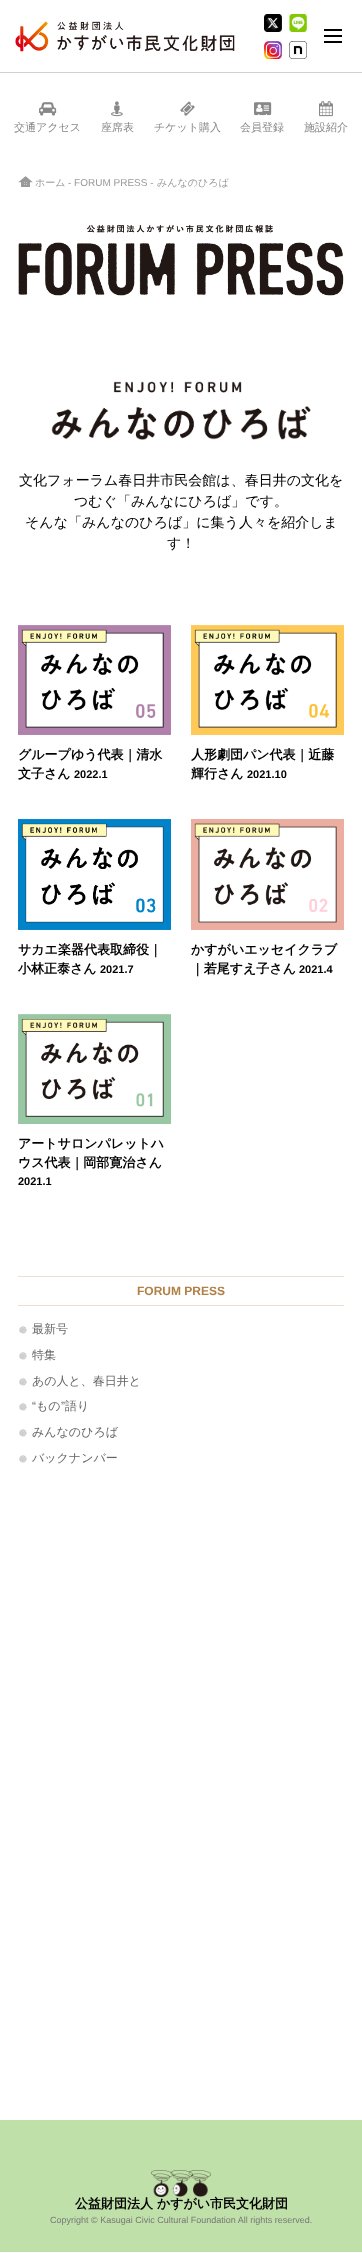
async function draw(canvas) {
  canvas.width = 362
  canvas.height = 2253
  const ctx = canvas.getContext('2d')
  ctx.miterLimit = 4
  ctx.fontKerning = 'normal'
  async function loadImage(src) {
    const img = new Image()
    img.src = src
    await img.decode()
    return img
  }

  ctx.fillStyle = '#fff'
  ctx.fillRect(0, 0, 362, 2253)
  ctx.fillStyle = '#d1d1d1'
  ctx.fillRect(0, 72, 362, 1)
  ctx.drawImage(await loadImage('image0.png'), 15, 21, 220, 31)
  ctx.drawImage(await loadImage('image1.png'), 264, 14, 18, 18)
  ctx.drawImage(await loadImage('image2.png'), 289, 14, 18, 18)
  ctx.drawImage(await loadImage('image3.png'), 264, 41, 18, 18)
  ctx.drawImage(await loadImage('image4.png'), 289, 41, 18, 18)
  ctx.fillStyle = '#000'
  ctx.fillRect(324, 35, 18, 2)
  ctx.fillRect(324, 29, 18, 2)
  ctx.fillRect(324, 41, 18, 2)
  ctx.drawImage(await loadImage('image5.png'), 39, 102, 18, 14)
  ctx.font = '500 11px WenQuanYi Zen Hei'
  ctx.fillStyle = '#888'
  ctx.fillText('交通アクセス', 14, 131)
  ctx.drawImage(await loadImage('image6.png'), 111, 101, 12, 16)
  ctx.fillText('座席表', 101, 131)
  ctx.drawImage(await loadImage('image7.png'), 180, 101, 15, 15)
  ctx.fillText('チケット購入', 154, 131)
  ctx.drawImage(await loadImage('image8.png'), 254, 102, 18, 14)
  ctx.fillText('会員登録', 240, 131)
  ctx.drawImage(await loadImage('image9.png'), 319, 101, 14, 16)
  ctx.fillText('施設紹介', 304, 131)
  ctx.drawImage(await loadImage('image10.png'), 18, 176, 15, 11)
  ctx.font = '500 10px WenQuanYi Zen Hei'
  ctx.fillStyle = '#999'
  ctx.fillText('ホーム', 35, 186)
  ctx.font = '10px Liberation Sans'
  ctx.fillText('- FORUM PRESS -', 68, 186)
  ctx.font = '500 10px WenQuanYi Zen Hei'
  ctx.fillText('みんなのひろば', 157, 186)
  ctx.drawImage(await loadImage('image11.png'), 18, 224, 326, 72)
  ctx.drawImage(await loadImage('image12.png'), 51, 381, 260, 59)
  ctx.font = '500 14px WenQuanYi Zen Hei'
  ctx.fillStyle = '#000'
  ctx.fillText('文化フォーラム春日井市民会館は、春日井の文化を', 19, 485)
  ctx.fillText('つむぐ「みんなにひろば」です。', 74, 506)
  ctx.fillText('そんな「みんなのひろば」に集う人々を紹介しま', 25, 527)
  ctx.fillText('す！', 167, 548)
  ctx.drawImage(await loadImage('image13.png'), 18, 625, 153, 110)
  ctx.font = 'bold 13px WenQuanYi Zen Hei'
  ctx.fillText('グループゆう代表｜清水', 18, 759)
  ctx.fillText('文子さん', 18, 778)
  ctx.font = 'bold 11px Liberation Sans'
  ctx.fillText('2022.1', 74, 778)
  ctx.drawImage(await loadImage('image14.png'), 191, 625, 153, 110)
  ctx.font = 'bold 13px WenQuanYi Zen Hei'
  ctx.fillText('人形劇団パン代表｜近藤', 191, 759)
  ctx.fillText('輝行さん', 191, 778)
  ctx.font = 'bold 11px Liberation Sans'
  ctx.fillText('2021.10', 247, 778)
  ctx.drawImage(await loadImage('image15.png'), 18, 819, 153, 111)
  ctx.font = 'bold 13px WenQuanYi Zen Hei'
  ctx.fillText('サカエ楽器代表取締役｜', 18, 954)
  ctx.fillText('小林正泰さん', 18, 973)
  ctx.font = 'bold 11px Liberation Sans'
  ctx.fillText('2021.7', 100, 973)
  ctx.drawImage(await loadImage('image16.png'), 191, 819, 153, 111)
  ctx.font = 'bold 13px WenQuanYi Zen Hei'
  ctx.fillText('かすがいエッセイクラブ', 191, 954)
  ctx.fillText('｜若尾すえ子さん', 191, 973)
  ctx.font = 'bold 11px Liberation Sans'
  ctx.fillText('2021.4', 299, 973)
  ctx.drawImage(await loadImage('image17.png'), 18, 1014, 153, 110)
  ctx.font = 'bold 13px WenQuanYi Zen Hei'
  ctx.fillText('アートサロンパレットハ', 18, 1148)
  ctx.fillText('ウス代表｜岡部寛治さん', 18, 1167)
  ctx.font = 'bold 11px Liberation Sans'
  ctx.fillText('2021.1', 18, 1185)
  ctx.fillStyle = '#ebdfd0'
  ctx.fillRect(18, 1276, 326, 1)
  ctx.fillRect(18, 1305, 326, 1)
  ctx.font = 'bold 12px Liberation Sans'
  ctx.fillStyle = '#b08045'
  ctx.fillText('FORUM PRESS', 137, 1295)
  ctx.drawImage(await loadImage('image18.png'), 19, 1326, 8, 8)
  ctx.font = '500 12px WenQuanYi Zen Hei'
  ctx.fillStyle = '#666'
  ctx.fillText('最新号', 32, 1333)
  ctx.drawImage(await loadImage('image18.png'), 19, 1352, 8, 8)
  ctx.fillText('特集', 32, 1359)
  ctx.drawImage(await loadImage('image18.png'), 19, 1378, 8, 8)
  ctx.fillText('あの人と、春日井と', 32, 1385)
  ctx.drawImage(await loadImage('image18.png'), 19, 1403, 8, 8)
  ctx.font = '12px Liberation Sans'
  ctx.fillText('“', 32, 1410)
  ctx.font = '500 12px WenQuanYi Zen Hei'
  ctx.fillText('もの', 36, 1410)
  ctx.font = '12px Liberation Sans'
  ctx.fillText('”', 61, 1410)
  ctx.font = '500 12px WenQuanYi Zen Hei'
  ctx.fillText('語り', 65, 1410)
  ctx.drawImage(await loadImage('image18.png'), 19, 1429, 8, 8)
  ctx.fillText('みんなのひろば', 32, 1436)
  ctx.drawImage(await loadImage('image18.png'), 19, 1455, 8, 8)
  ctx.fillText('バックナンバー', 32, 1462)
  ctx.fillStyle = '#c0e0aa'
  ctx.fillRect(0, 2120, 362, 132)
  ctx.drawImage(await loadImage('image19.png'), 151, 2170, 60, 27)
  ctx.font = 'bold 13px WenQuanYi Zen Hei'
  ctx.fillStyle = '#000'
  ctx.fillText('公益財団法人 かすがい市民文化財団', 75, 2208)
  ctx.font = '9px Liberation Sans'
  ctx.fillStyle = '#777'
  ctx.fillText('Copyright © Kasugai Civic Cultural Foundation All rights reserved.', 50, 2223)
}

draw(document.querySelector('canvas'))
